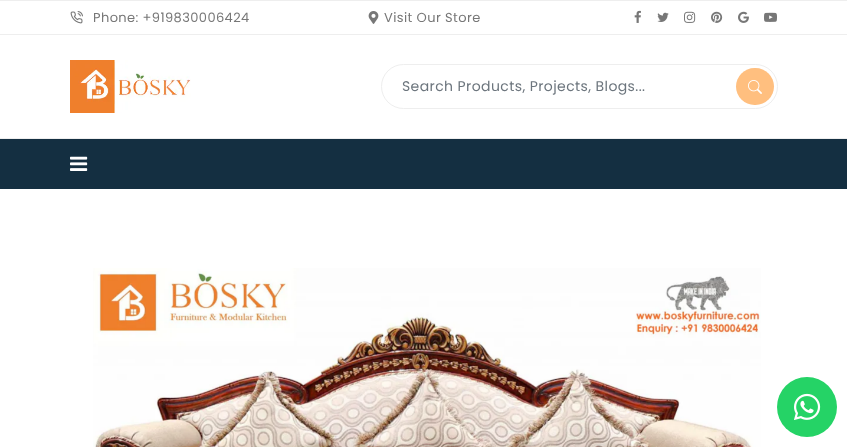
async function draw(canvas) {
  canvas.width = 847
  canvas.height = 447
  const ctx = canvas.getContext('2d')
  ctx.miterLimit = 4
  ctx.fontKerning = 'normal'
  async function loadImage(src) {
    const img = new Image()
    img.src = src
    await img.decode()
    return img
  }

  ctx.fillStyle = '#fff'
  ctx.fillRect(0, 0, 847, 447)
  ctx.fillStyle = '#eee'
  ctx.fillRect(0, 0, 847, 1)
  ctx.fillRect(0, 34, 847, 1)
  ctx.drawImage(await loadImage('image0.png'), 70, 11, 13, 13)
  ctx.letterSpacing = '0.4px'
  ctx.font = '13px Poppins'
  ctx.fillStyle = '#777'
  ctx.fillText('Phone: +919830006424', 93, 22)
  ctx.drawImage(await loadImage('image1.png'), 368, 11, 11, 13)
  ctx.fillText('Visit Our Store', 384, 22)
  ctx.drawImage(await loadImage('image2.png'), 634, 10, 7, 13)
  ctx.drawImage(await loadImage('image3.png'), 657, 12, 12, 10)
  ctx.drawImage(await loadImage('image4.png'), 684, 11, 12, 12)
  ctx.drawImage(await loadImage('image5.png'), 711, 11, 12, 12)
  ctx.drawImage(await loadImage('image6.png'), 738, 11, 11, 12)
  ctx.drawImage(await loadImage('image7.png'), 764, 12, 13, 10)
  ctx.fillStyle = '#eee'
  ctx.fillRect(0, 138, 847, 1)
  ctx.drawImage(await loadImage('image8.png'), 70, 60, 121, 53)
  ctx.beginPath()
  ctx.roundRect(381.5, 64.5, 396, 44, 22)
  ctx.strokeStyle = '#eee'
  ctx.stroke()
  ctx.font = '14px Poppins'
  ctx.fillStyle = '#6c757d'
  ctx.fillText('Search Products, Projects, Blogs...', 402, 91)
  ctx.fillStyle = '#ffbf7f'
  ctx.beginPath()
  ctx.roundRect(736, 68, 38, 37, 18.5)
  ctx.fill()
  ctx.drawImage(await loadImage('image9.png'), 748, 80, 14, 14)
  ctx.fillStyle = '#142f41'
  ctx.fillRect(0, 139, 847, 50)
  ctx.drawImage(await loadImage('image10.png'), 70, 156, 18, 15)
  ctx.drawImage(await loadImage('image11.png'), 93, 268, 668, 179)
  ctx.fillStyle = '#25d366'
  ctx.beginPath()
  ctx.arc(807, 407, 30, 0, 2 * Math.PI)
  ctx.fill()
  ctx.drawImage(await loadImage('image12.png'), 794, 393, 27, 27)
}

draw(document.querySelector('canvas'))
